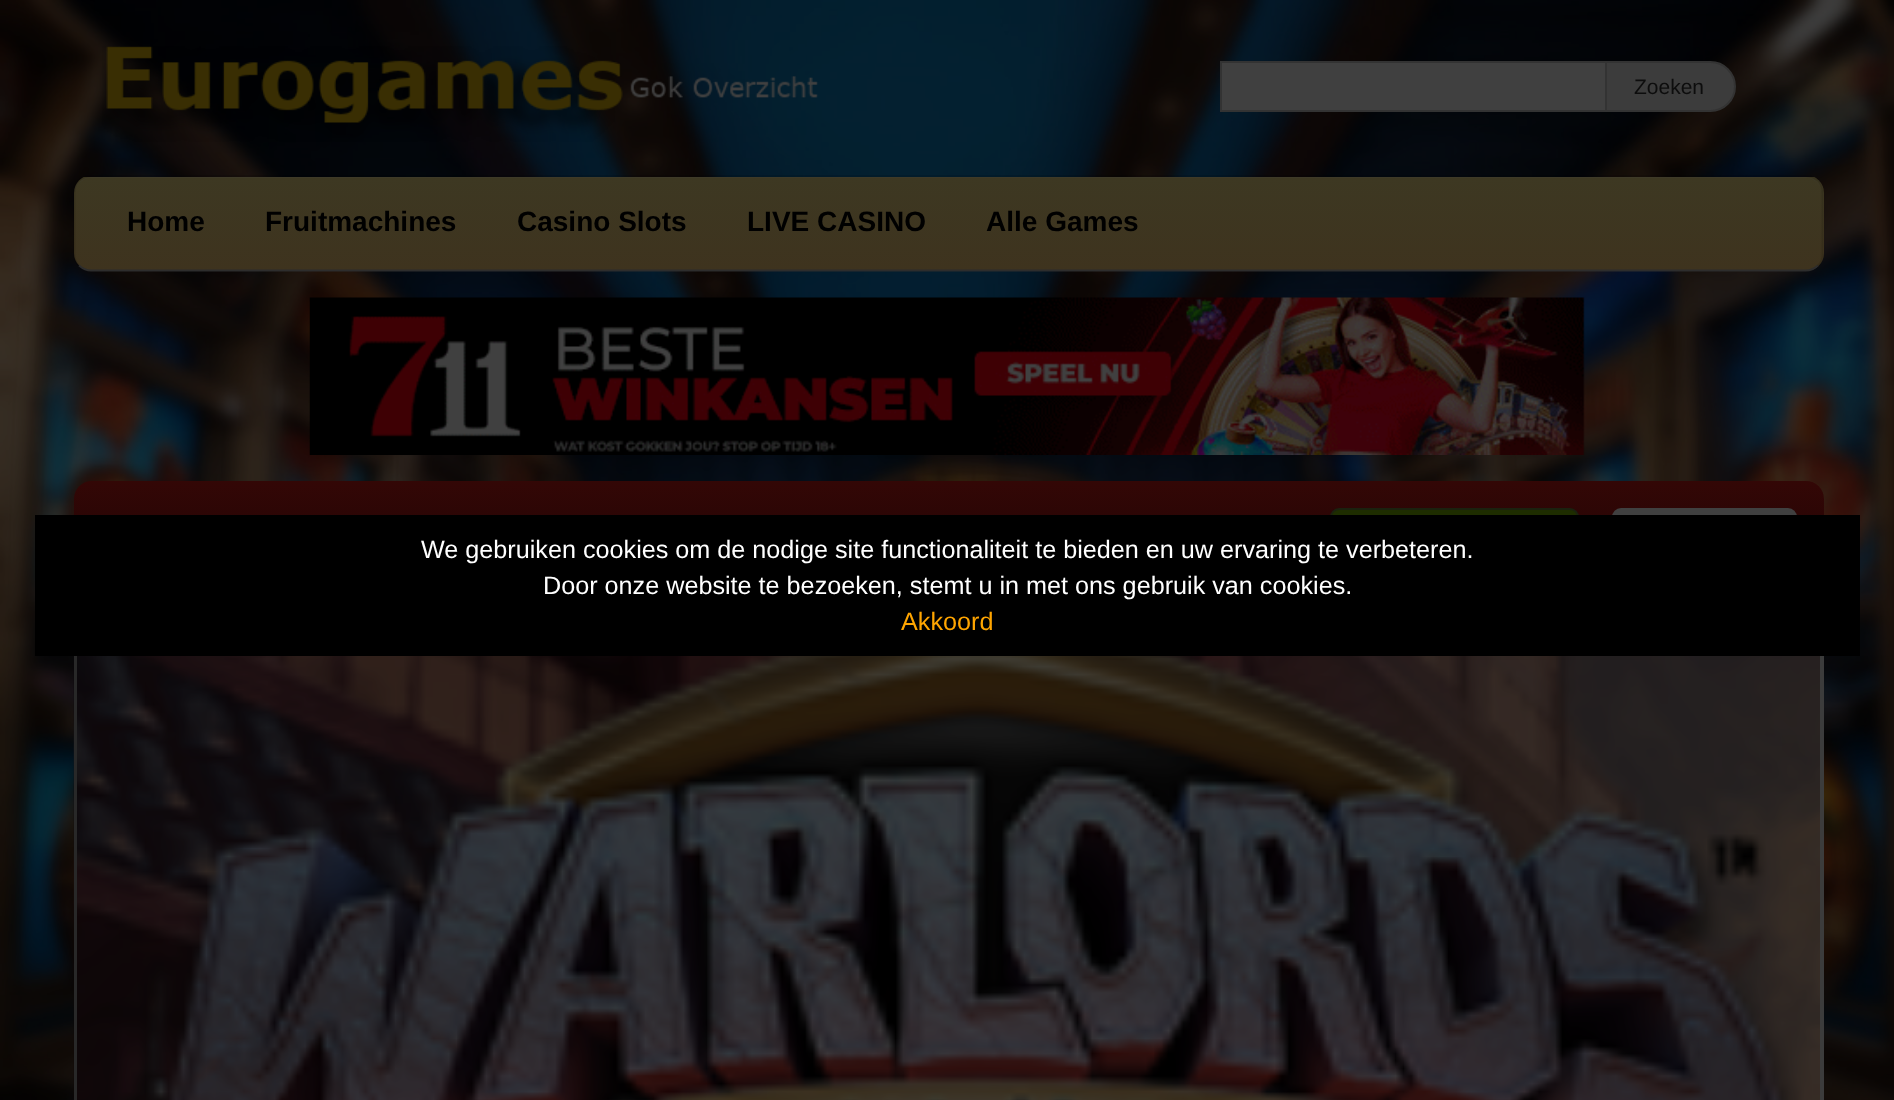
async function draw(canvas) {
  canvas.width = 1894
  canvas.height = 1100
  const ctx = canvas.getContext('2d')
  ctx.miterLimit = 4
  ctx.fontKerning = 'normal'
  async function loadImage(src) {
    const img = new Image()
    img.src = src
    await img.decode()
    return img
  }
  let gradient

  ctx.fillStyle = '#fff'
  ctx.fillRect(0, 0, 1894, 1100)
  ctx.drawImage(await loadImage('image0.png'), 0, 0, 1894, 1100)
  ctx.drawImage(await loadImage('image1.png'), 102, 46, 717, 96)
  ctx.fillStyle = '#404040'
  ctx.fillRect(1222, 63, 383, 47)
  ctx.fillStyle = '#333'
  ctx.fillRect(1220, 61, 385, 2)
  ctx.fillRect(1220, 110, 385, 2)
  ctx.fillRect(1220, 61, 2, 51)
  ctx.fillStyle = '#3c3c3c'
  ctx.beginPath()
  ctx.roundRect(1606, 62, 129, 49, [0, 24.5, 24.5, 0])
  ctx.fill()
  ctx.strokeStyle = '#333'
  ctx.lineWidth = 2
  ctx.stroke()
  ctx.font = '21px Liberation Sans'
  ctx.fillStyle = '#0d0d0d'
  ctx.fillText('Zoeken', 1634, 94)
  ctx.save()
  ctx.beginPath()
  ctx.roundRect(74, 175, 1750, 96, 18)
  ctx.clip()
  gradient = ctx.createLinearGradient(949, 177, 949, 270)
  gradient.addColorStop(0, '#3d3822')
  gradient.addColorStop(1, '#3e331e')
  ctx.fillStyle = gradient
  ctx.fillRect(74, 177, 1750, 93)
  ctx.restore()
  ctx.fillStyle = '#3e3a28'
  ctx.beginPath()
  ctx.moveTo(91, 178)
  ctx.lineTo(1806, 178)
  ctx.bezierCurveTo(1815, 178, 1822, 186, 1822, 194)
  ctx.bezierCurveTo(1822, 185, 1815, 177, 1806, 177)
  ctx.lineTo(91, 177)
  ctx.bezierCurveTo(82, 177, 75, 185, 75, 194)
  ctx.bezierCurveTo(75, 186, 82, 178, 91, 178)
  ctx.closePath()
  ctx.fill()
  ctx.beginPath()
  ctx.moveTo(1818, 265.5)
  ctx.bezierCurveTo(1814.5, 268.5, 1810.5, 270.5, 1806, 270.5)
  ctx.lineTo(91, 270.5)
  ctx.bezierCurveTo(86.5, 270.5, 82.5, 268.5, 79, 265.5)
  ctx.strokeStyle = '#2d2d2d'
  ctx.lineWidth = 1.8
  ctx.stroke()
  ctx.beginPath()
  ctx.moveTo(79, 265.5)
  ctx.bezierCurveTo(76, 262.5, 74.5, 258, 74.5, 254)
  ctx.lineTo(74.5, 192.5)
  ctx.bezierCurveTo(74.5, 188, 76, 184, 79, 180.5)
  ctx.bezierCurveTo(82.5, 177.5, 86.5, 176, 91, 176)
  ctx.lineTo(1806, 176)
  ctx.bezierCurveTo(1810.5, 176, 1814.5, 177.5, 1818, 180.5)
  ctx.bezierCurveTo(1821, 184, 1822.5, 188, 1822.5, 192.5)
  ctx.lineTo(1822.5, 254)
  ctx.bezierCurveTo(1822.5, 258, 1821, 262.5, 1818, 265.5)
  ctx.strokeStyle = '#0000001a'
  ctx.stroke()
  ctx.font = 'bold 28px Liberation Sans'
  ctx.fillStyle = '#000'
  ctx.fillText('Home', 127, 231)
  ctx.fillText('Fruitmachines', 265, 231)
  ctx.fillText('Casino Slots', 517, 231)
  ctx.fillText('LIVE CASINO', 747, 231)
  ctx.fillText('Alle Games', 986, 231)
  ctx.drawImage(await loadImage('image2.png'), 309, 297, 1276, 158)
  gradient = ctx.createLinearGradient(949, 481, 949, 576)
  gradient.addColorStop(0, '#330706')
  gradient.addColorStop(1, '#210404')
  ctx.fillStyle = gradient
  ctx.beginPath()
  ctx.roundRect(74, 481, 1750, 95, [18, 18, 0, 0])
  ctx.fill()
  ctx.fillStyle = '#1e2d00'
  ctx.beginPath()
  ctx.roundRect(1331, 509, 247, 38, 8)
  ctx.fill()
  ctx.strokeStyle = '#1b210f'
  ctx.lineWidth = 2
  ctx.stroke()
  ctx.fillStyle = '#404040'
  ctx.beginPath()
  ctx.roundRect(1612, 508, 185, 40, 9)
  ctx.fill()
  ctx.drawImage(await loadImage('image3.png'), 73, 656, 1747, 444)
  ctx.fillStyle = '#3c3c3c'
  ctx.beginPath()
  ctx.moveTo(1824, 576)
  ctx.lineTo(1824, 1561)
  ctx.lineTo(1820, 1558)
  ctx.lineTo(1820, 579)
  ctx.closePath()
  ctx.fill()
  ctx.fillStyle = '#282828'
  ctx.beginPath()
  ctx.moveTo(74, 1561)
  ctx.lineTo(74, 576)
  ctx.lineTo(77, 579)
  ctx.lineTo(77, 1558)
  ctx.closePath()
  ctx.fill()
  ctx.fillStyle = '#000'
  ctx.fillRect(35, 515, 1825, 141)
  ctx.font = '25.2px Liberation Sans'
  ctx.fillStyle = '#fff'
  ctx.fillText('We gebruiken cookies om de nodige site functionaliteit te bieden en uw ervaring te verbeteren.', 421, 558)
  ctx.fillText('Door onze website te bezoeken, stemt u in met ons gebruik van cookies.', 543, 594)
  ctx.fillStyle = '#ffa500'
  ctx.fillText('Akkoord', 901, 630)
}

draw(document.querySelector('canvas'))
